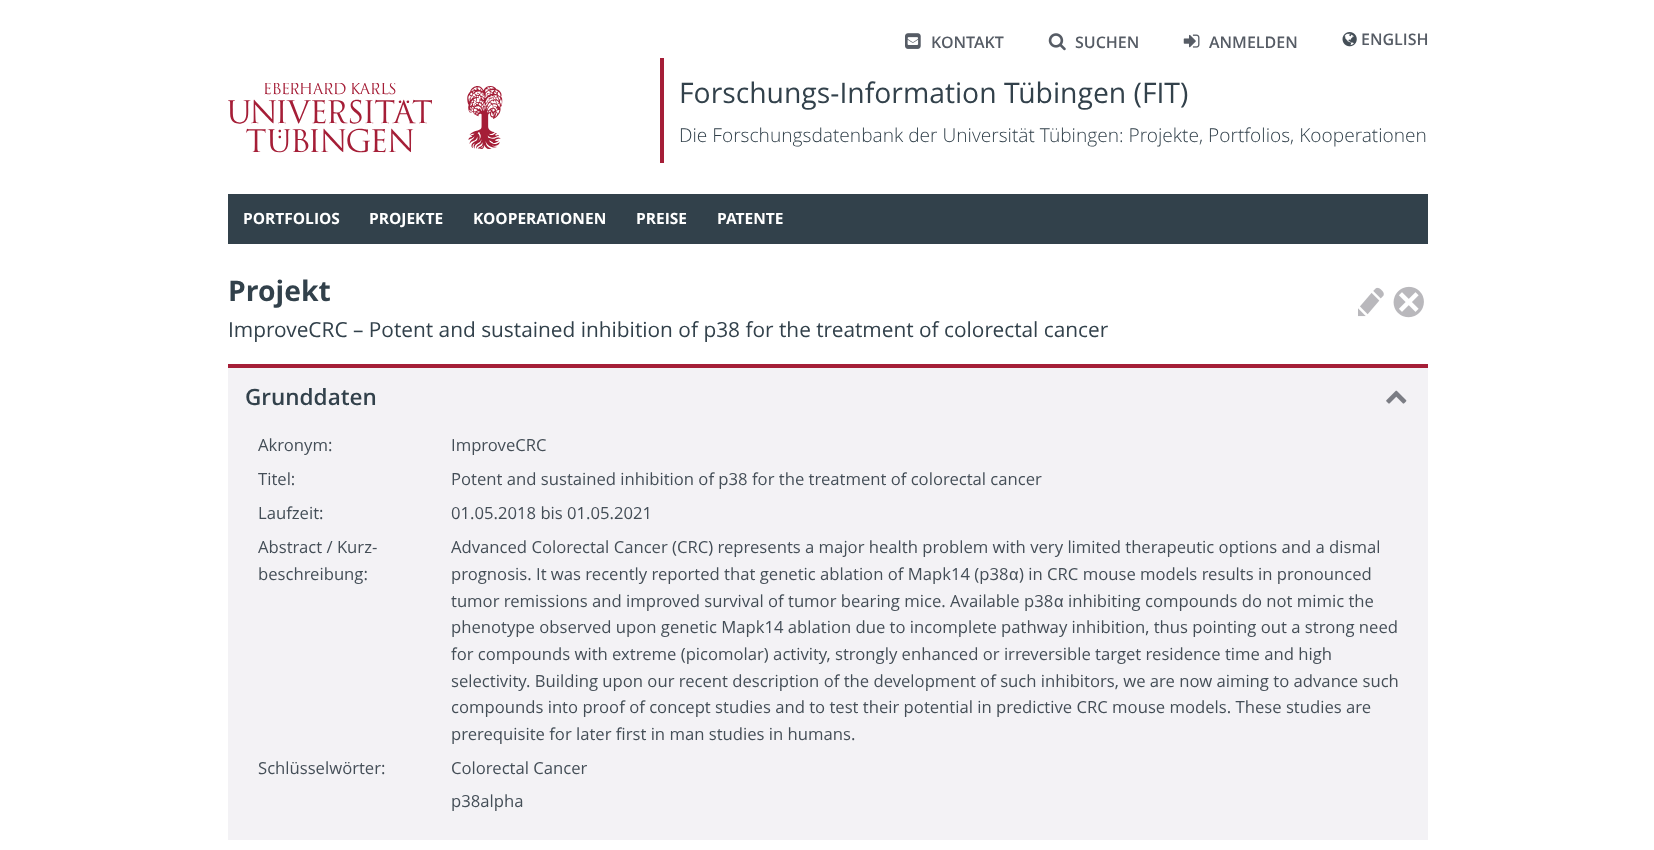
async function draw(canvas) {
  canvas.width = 1654
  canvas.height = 850
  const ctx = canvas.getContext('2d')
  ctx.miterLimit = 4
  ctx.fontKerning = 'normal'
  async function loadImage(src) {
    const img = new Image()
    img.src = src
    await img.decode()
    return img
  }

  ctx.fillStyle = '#fff'
  ctx.fillRect(0, 0, 1654, 850)
  ctx.drawImage(await loadImage('image0.png'), 905, 33, 16, 16)
  ctx.font = '600 16px Open Sans'
  ctx.fillStyle = '#565c65'
  ctx.fillText('KONTAKT', 931, 48)
  ctx.drawImage(await loadImage('image1.png'), 1048, 33, 18, 18)
  ctx.fillText('SUCHEN', 1075, 48)
  ctx.drawImage(await loadImage('image2.png'), 1183, 34, 17, 14)
  ctx.fillText('ANMELDEN', 1209, 48)
  ctx.drawImage(await loadImage('image3.png'), 1342, 32, 15, 15)
  ctx.fillText('ENGLISH', 1361, 45)
  ctx.drawImage(await loadImage('image4.png'), 228, 83, 275, 70)
  ctx.fillStyle = '#a51e37'
  ctx.fillRect(660, 58, 4, 105)
  ctx.font = '28.3px Open Sans'
  ctx.fillStyle = '#32414b'
  ctx.fillText('Forschungs-Information Tübingen (FIT)', 679, 103)
  ctx.font = '300 19.15px Open Sans'
  ctx.fillText('Die Forschungsdatenbank der Universität Tübingen: Projekte, Portfolios, Kooperationen', 679, 142)
  ctx.fillRect(228, 194, 1200, 50)
  ctx.font = 'bold 15.5px Open Sans'
  ctx.fillStyle = '#fff'
  ctx.fillText('PORTFOLIOS', 243, 224)
  ctx.fillText('PROJEKTE', 369, 224)
  ctx.fillText('KOOPERATIONEN', 473, 224)
  ctx.fillText('PREISE', 636, 224)
  ctx.fillText('PATENTE', 717, 224)
  ctx.font = 'bold 28.3px Open Sans'
  ctx.fillStyle = '#32414b'
  ctx.fillText('Projekt', 228, 301)
  ctx.font = '20.85px Open Sans'
  ctx.fillText('ImproveCRC – Potent and sustained inhibition of p38 for the treatment of colorectal cancer', 228, 337)
  ctx.drawImage(await loadImage('image5.png'), 1358, 287, 26, 30)
  ctx.drawImage(await loadImage('image6.png'), 1393, 286, 31, 32)
  ctx.fillStyle = '#f3f2f5'
  ctx.fillRect(228, 368, 1200, 472)
  ctx.fillStyle = '#a51e37'
  ctx.fillRect(228, 364, 1200, 4)
  ctx.font = '600 22.5px Open Sans'
  ctx.fillStyle = '#32414b'
  ctx.fillText('Grunddaten', 245, 405)
  ctx.drawImage(await loadImage('image7.png'), 1386, 390, 21, 14)
  ctx.font = '16.67px Open Sans'
  ctx.fillStyle = '#444e57'
  ctx.fillText('Akronym:', 258, 451)
  ctx.fillText('ImproveCRC', 451, 451)
  ctx.fillText('Titel:', 258, 485)
  ctx.fillText('Potent and sustained inhibition of p38 for the treatment of colorectal cancer', 451, 485)
  ctx.fillText('Laufzeit:', 258, 519)
  ctx.fillText('01.05.2018 bis 01.05.2021', 451, 519)
  ctx.fillText('Abstract / Kurz-', 258, 553)
  ctx.fillText('beschreibung:', 258, 580)
  ctx.fillText('Advanced Colorectal Cancer (CRC) represents a major health problem with very limited therapeutic options and a dismal', 451, 553)
  ctx.fillText('prognosis. It was recently reported that genetic ablation of Mapk14 (p38', 451, 580)
  ctx.font = '16.67px Liberation Sans'
  ctx.fillText('α', 1009, 580)
  ctx.font = '16.67px Open Sans'
  ctx.fillText(') in CRC mouse models results in pronounced', 1019, 580)
  ctx.fillText('tumor remissions and improved survival of tumor bearing mice. Available p38', 451, 607)
  ctx.font = '16.67px Liberation Sans'
  ctx.fillText('α', 1054, 607)
  ctx.font = '16.67px Open Sans'
  ctx.fillText('inhibiting compounds do not mimic the', 1068, 607)
  ctx.fillText('phenotype observed upon genetic Mapk14 ablation due to incomplete pathway inhibition, thus pointing out a strong need', 451, 633)
  ctx.fillText('for compounds with extreme (picomolar) activity, strongly enhanced or irreversible target residence time and high', 451, 660)
  ctx.fillText('selectivity. Building upon our recent description of the development of such inhibitors, we are now aiming to advance such', 451, 687)
  ctx.fillText('compounds into proof of concept studies and to test their potential in predictive CRC mouse models. These studies are', 451, 713)
  ctx.fillText('prerequisite for later first in man studies in humans.', 451, 740)
  ctx.fillText('Schlüsselwörter:', 258, 774)
  ctx.fillText('Colorectal Cancer', 451, 774)
  ctx.fillText('p38alpha', 451, 807)
}

draw(document.querySelector('canvas'))
